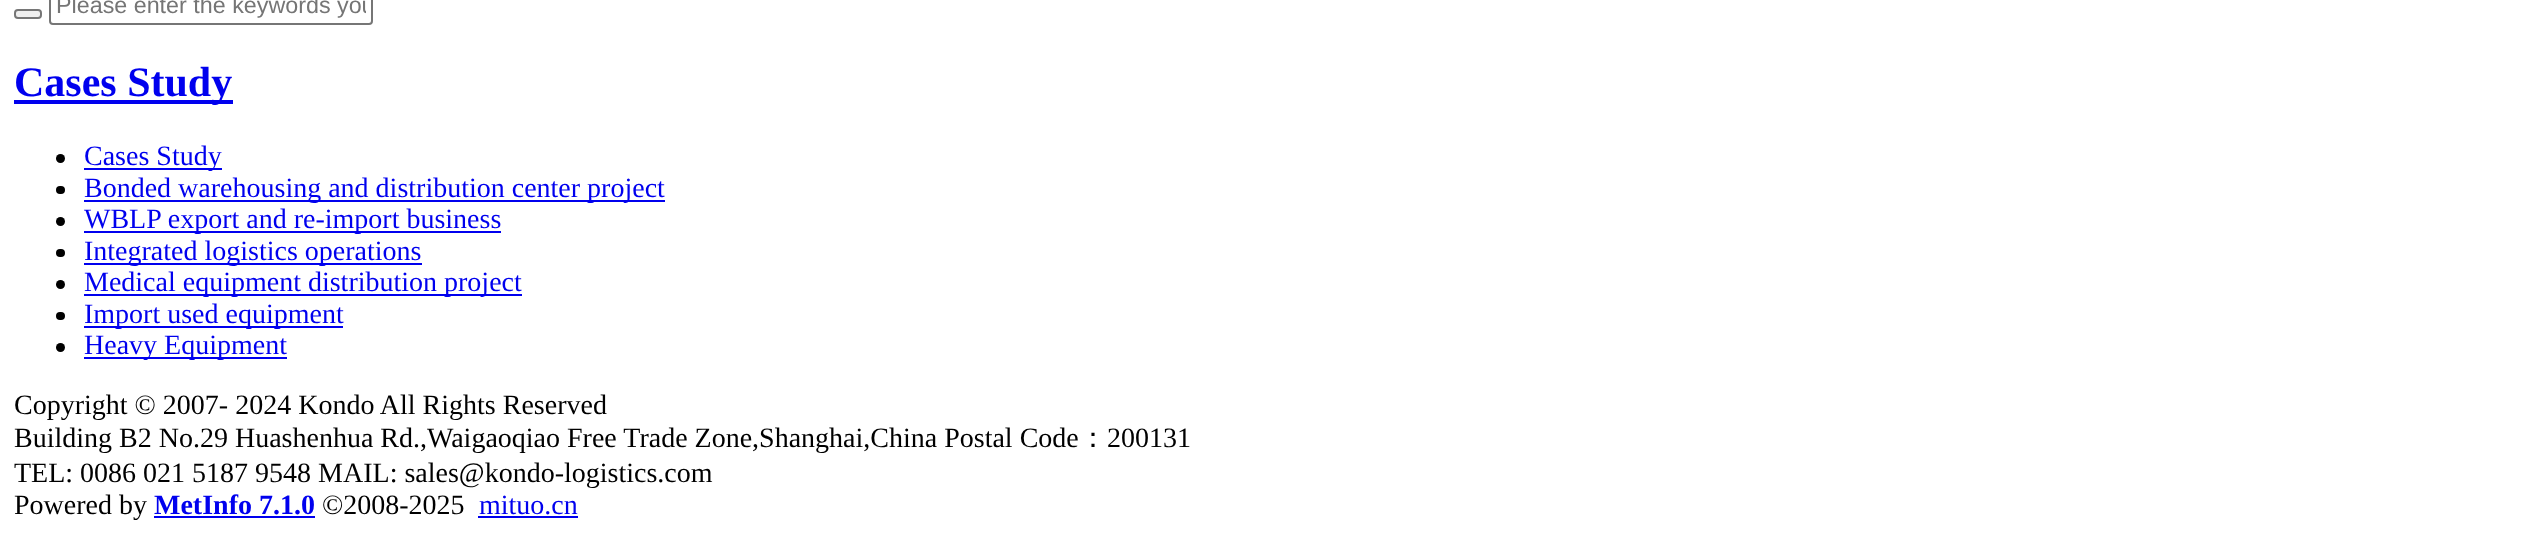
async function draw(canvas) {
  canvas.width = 2528
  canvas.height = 535
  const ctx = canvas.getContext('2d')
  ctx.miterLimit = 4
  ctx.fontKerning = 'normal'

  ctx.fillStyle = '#fff'
  ctx.fillRect(0, 0, 2528, 535)
  ctx.fillStyle = '#efefef'
  ctx.beginPath()
  ctx.roundRect(15, 10, 26, 8, 3)
  ctx.fill()
  ctx.strokeStyle = '#767676'
  ctx.lineWidth = 2
  ctx.stroke()
  ctx.beginPath()
  ctx.roundRect(50, -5, 322, 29, 3)
  ctx.stroke()
  ctx.save()
  ctx.beginPath()
  ctx.rect(56, 0, 310, 19)
  ctx.clip()
  ctx.font = '23.3px Liberation Sans'
  ctx.fillStyle = '#757575'
  ctx.fillText('Please enter the keywords you', 56, 13)
  ctx.restore()
  ctx.fillStyle = '#00e'
  ctx.fillRect(14, 100, 219, 4)
  ctx.font = 'bold 42px Liberation Serif'
  ctx.fillText('Cases Study', 14, 96)
  ctx.fillStyle = '#000'
  ctx.beginPath()
  ctx.arc(60.5, 158.5, 4.5, 0, 2 * Math.PI)
  ctx.fill()
  ctx.fillStyle = '#00e'
  ctx.fillRect(84, 168, 138, 2)
  ctx.font = '28px Liberation Serif'
  ctx.fillText('Cases Study', 84, 165)
  ctx.fillStyle = '#000'
  ctx.beginPath()
  ctx.roundRect(56, 186, 9, 8, 4)
  ctx.fill()
  ctx.fillStyle = '#00e'
  ctx.fillRect(84, 200, 581, 2)
  ctx.fillText('Bonded warehousing and distribution center project', 84, 197)
  ctx.fillStyle = '#000'
  ctx.beginPath()
  ctx.arc(60.5, 221.5, 4.5, 0, 2 * Math.PI)
  ctx.fill()
  ctx.fillStyle = '#00e'
  ctx.fillRect(84, 231, 417, 2)
  ctx.fillText('WBLP export and re-import business', 84, 228)
  ctx.fillStyle = '#000'
  ctx.beginPath()
  ctx.roundRect(56, 249, 9, 8, 4)
  ctx.fill()
  ctx.fillStyle = '#00e'
  ctx.fillRect(84, 263, 338, 2)
  ctx.fillText('Integrated logistics operations', 84, 260)
  ctx.fillStyle = '#000'
  ctx.beginPath()
  ctx.arc(60.5, 284.5, 4.5, 0, 2 * Math.PI)
  ctx.fill()
  ctx.fillStyle = '#00e'
  ctx.fillRect(84, 294, 438, 2)
  ctx.fillText('Medical equipment distribution project', 84, 291)
  ctx.fillStyle = '#000'
  ctx.beginPath()
  ctx.roundRect(56, 312, 9, 8, 4)
  ctx.fill()
  ctx.fillStyle = '#00e'
  ctx.fillRect(84, 326, 259, 2)
  ctx.fillText('Import used equipment', 84, 323)
  ctx.fillStyle = '#000'
  ctx.beginPath()
  ctx.arc(60.5, 347.5, 4.5, 0, 2 * Math.PI)
  ctx.fill()
  ctx.fillStyle = '#00e'
  ctx.fillRect(84, 357, 203, 2)
  ctx.fillText('Heavy Equipment', 84, 354)
  ctx.fillStyle = '#000'
  ctx.fillText('Copyright © 2007- 2024 Kondo All Rights Reserved', 14, 414)
  ctx.fillText('Building B2 No.29 Huashenhua Rd.,Waigaoqiao Free Trade Zone,Shanghai,China Postal Code', 14, 447)
  ctx.font = '500 28px WenQuanYi Zen Hei'
  ctx.fillText('：', 1079, 447)
  ctx.font = '28px Liberation Serif'
  ctx.fillText('200131', 1107, 447)
  ctx.fillText('TEL: 0086 021 5187 9548 MAIL: sales@kondo-logistics.com', 14, 482)
  ctx.fillText('Powered by', 14, 514)
  ctx.font = 'bold 28px Liberation Serif'
  ctx.fillStyle = '#00e'
  ctx.fillText('MetInfo 7.1.0', 154, 514)
  ctx.fillRect(154, 516, 161, 2)
  ctx.font = '28px Liberation Serif'
  ctx.fillStyle = '#000'
  ctx.fillText('©2008-2025', 322, 514)
  ctx.fillStyle = '#00e'
  ctx.fillText('mituo.cn', 479, 514)
  ctx.fillRect(478, 516, 100, 2)
}

draw(document.querySelector('canvas'))
